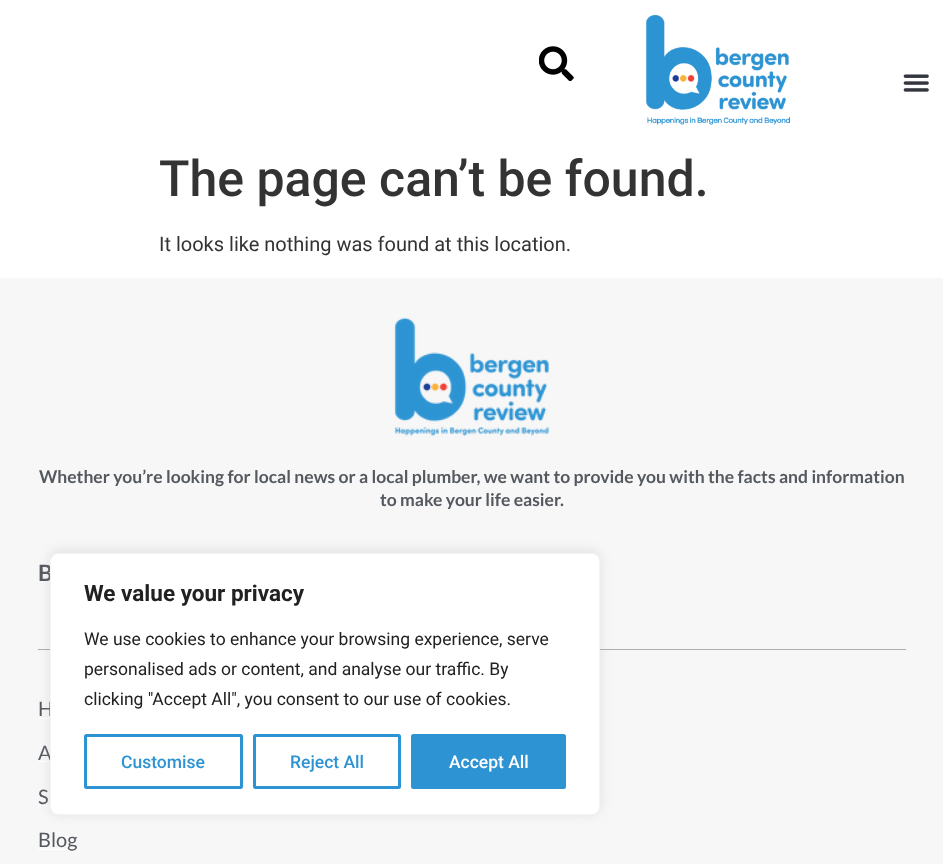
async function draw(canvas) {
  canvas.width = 943
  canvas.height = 864
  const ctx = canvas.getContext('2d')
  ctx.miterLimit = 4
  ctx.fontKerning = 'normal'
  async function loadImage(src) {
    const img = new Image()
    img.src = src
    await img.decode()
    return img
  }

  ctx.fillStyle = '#fff'
  ctx.fillRect(0, 0, 943, 864)
  ctx.drawImage(await loadImage('image0.png'), 539, 46, 35, 35)
  ctx.drawImage(await loadImage('image1.png'), 645, 14, 145, 111)
  ctx.drawImage(await loadImage('image2.png'), 903, 74, 26, 18)
  ctx.font = '500 50px Roboto'
  ctx.fillStyle = '#333'
  ctx.fillText('The page can’t be found.', 159, 196)
  ctx.font = '20px Roboto'
  ctx.fillText('It looks like nothing was found at this location.', 159, 251)
  ctx.fillStyle = '#f7f7f7'
  ctx.fillRect(0, 278, 943, 586)
  ctx.drawImage(await loadImage('image3.png'), 394, 317, 155, 120)
  ctx.font = 'bold 17.5px Lato'
  ctx.fillStyle = '#54595f'
  ctx.fillText('Whether you’re looking for local news or a local plumber, we want to provide you with the facts and information', 39, 483)
  ctx.fillText('to make your life easier.', 380, 506)
  ctx.font = 'bold 22.5px Lato'
  ctx.fillText('B', 38, 581)
  ctx.fillStyle = '#acaeb1'
  ctx.fillRect(38, 649, 868, 1)
  ctx.font = '20px Lato'
  ctx.fillStyle = '#54595f'
  ctx.fillText('H', 38, 716)
  ctx.fillStyle = '#fff'
  ctx.fillRect(38, 718, 12, 1)
  ctx.fillStyle = '#54595f'
  ctx.fillText('A', 38, 760)
  ctx.fillStyle = '#fff'
  ctx.fillRect(38, 761, 12, 1)
  ctx.fillStyle = '#54595f'
  ctx.fillText('S', 38, 804)
  ctx.fillStyle = '#fff'
  ctx.fillRect(38, 805, 12, 1)
  ctx.fillRect(38, 849, 40, 1)
  ctx.fillStyle = '#54595f'
  ctx.fillText('Blog', 38, 847)
  ctx.fillStyle = '#acabab4d'
  ctx.filter = 'blur(6px)'
  ctx.beginPath()
  ctx.roundRect(50, 551, 550, 263, 8)
  ctx.fill()
  ctx.filter = 'none'
  ctx.fillStyle = '#fff'
  ctx.beginPath()
  ctx.roundRect(50.5, 553.5, 549, 261, 7.5)
  ctx.fill()
  ctx.strokeStyle = '#f4f4f4'
  ctx.stroke()
  ctx.font = 'bold 22.5px Roboto'
  ctx.fillStyle = '#212121'
  ctx.fillText('We value your privacy', 84, 601)
  ctx.font = '17.5px Roboto'
  ctx.fillText('We use cookies to enhance your browsing experience, serve', 84, 645)
  ctx.fillText('personalised ads or content, and analyse our traffic. By', 84, 675)
  ctx.fillText('clicking "Accept All", you consent to our use of cookies.', 84, 705)
  ctx.beginPath()
  ctx.roundRect(85.5, 735.5, 156, 52, 1)
  ctx.strokeStyle = '#2e93d3'
  ctx.lineWidth = 3
  ctx.stroke()
  ctx.font = '500 17.5px Roboto'
  ctx.fillStyle = '#2e93d3'
  ctx.fillText('Customise', 121, 768)
  ctx.beginPath()
  ctx.roundRect(254.5, 735.5, 145, 52, 1)
  ctx.stroke()
  ctx.fillText('Reject All', 290, 768)
  ctx.beginPath()
  ctx.roundRect(412.5, 735.5, 152, 52, 1)
  ctx.fill()
  ctx.stroke()
  ctx.fillStyle = '#fff'
  ctx.fillText('Accept All', 449, 768)
}

draw(document.querySelector('canvas'))
